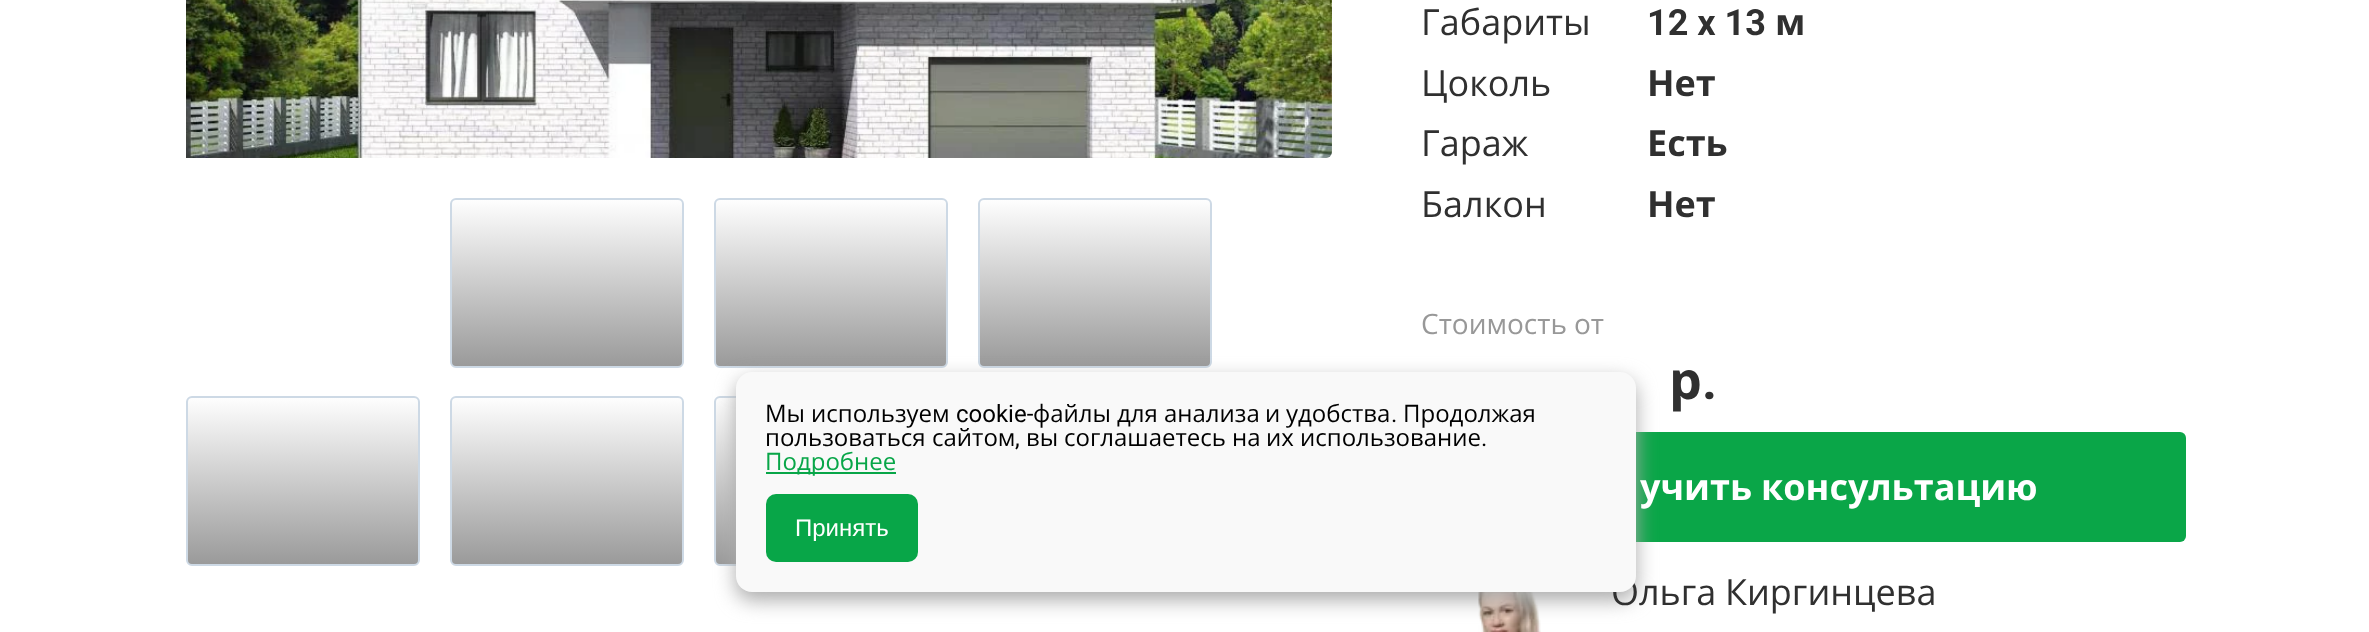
async function draw(canvas) {
  canvas.width = 2369
  canvas.height = 632
  const ctx = canvas.getContext('2d')
  ctx.miterLimit = 4
  ctx.fontKerning = 'normal'
  async function loadImage(src) {
    const img = new Image()
    img.src = src
    await img.decode()
    return img
  }
  let gradient

  ctx.fillStyle = '#fff'
  ctx.fillRect(0, 0, 2369, 632)
  gradient = ctx.createLinearGradient(831, 198, 831, 368)
  gradient.addColorStop(0, '#fff')
  gradient.addColorStop(1, '#999')
  ctx.fillStyle = gradient
  ctx.beginPath()
  ctx.roundRect(715, 199, 232, 168, 5)
  ctx.fill()
  ctx.strokeStyle = '#cdd9e5'
  ctx.lineWidth = 2
  ctx.stroke()
  gradient = ctx.createLinearGradient(1095, 198, 1095, 368)
  gradient.addColorStop(0, '#fff')
  gradient.addColorStop(1, '#999')
  ctx.fillStyle = gradient
  ctx.beginPath()
  ctx.roundRect(979, 199, 232, 168, 5)
  ctx.fill()
  ctx.stroke()
  gradient = ctx.createLinearGradient(831, 396, 831, 566)
  gradient.addColorStop(0, '#fff')
  gradient.addColorStop(1, '#999')
  ctx.fillStyle = gradient
  ctx.beginPath()
  ctx.roundRect(715, 397, 232, 168, 5)
  ctx.fill()
  ctx.stroke()
  ctx.fillStyle = '#0aa648'
  ctx.beginPath()
  ctx.roundRect(1422, 432, 764, 110, 6)
  ctx.fill()
  ctx.drawImage(await loadImage('image1.png'), 1478, 592, 63, 40)
  ctx.fillStyle = '#aaa'
  ctx.filter = 'blur(10px)'
  ctx.beginPath()
  ctx.roundRect(736, 380, 900, 220, 16)
  ctx.fill()
  ctx.filter = 'none'
  ctx.font = '36px Open Sans'
  ctx.fillStyle = '#303030'
  ctx.fillText('Ольга', 1611, 605)
  ctx.fillStyle = '#f9f9f9'
  ctx.beginPath()
  ctx.roundRect(736, 372, 900, 220, 16)
  ctx.fill()
  ctx.font = '24px Open Sans'
  ctx.fillStyle = '#000'
  ctx.fillText('Мы', 765, 422)
  ctx.fillText('используем', 811, 422)
  ctx.font = '24px Roboto'
  ctx.fillText('cookie-', 956, 422)
  ctx.font = '24px Open Sans'
  ctx.fillText('файлы', 1033, 422)
  ctx.fillText('для', 1117, 422)
  ctx.fillText('анализа', 1164, 422)
  ctx.fillText('и', 1265, 422)
  ctx.fillText('удобства', 1286, 422)
  ctx.font = '24px Roboto'
  ctx.fillText('.', 1391, 422)
  ctx.font = '24px Open Sans'
  ctx.fillText('Продолжая', 1403, 422)
  ctx.fillText('пользоваться', 765, 446)
  ctx.fillText('сайтом', 932, 446)
  ctx.font = '24px Roboto'
  ctx.fillText(',', 1015, 446)
  ctx.font = '24px Open Sans'
  ctx.fillText('вы', 1026, 446)
  ctx.fillText('соглашаетесь', 1064, 446)
  ctx.fillText('на', 1232, 446)
  ctx.fillText('их', 1266, 446)
  ctx.fillText('использование', 1300, 446)
  ctx.font = '24px Roboto'
  ctx.fillText('.', 1481, 446)
  ctx.fillStyle = '#08a648'
  ctx.fillRect(766, 472, 130, 2)
  ctx.font = '24px Open Sans'
  ctx.fillText('Подробнее', 765, 470)
  ctx.beginPath()
  ctx.roundRect(766, 494, 152, 68, 10)
  ctx.fill()
  ctx.font = '24px Liberation Sans'
  ctx.fillStyle = '#fff'
  ctx.fillText('Принять', 795, 536)
  ctx.drawImage(await loadImage('image0.png'), 186, 0, 1146, 158)
  gradient = ctx.createLinearGradient(567, 198, 567, 368)
  gradient.addColorStop(0, '#fff')
  gradient.addColorStop(1, '#999')
  ctx.fillStyle = gradient
  ctx.beginPath()
  ctx.roundRect(451, 199, 232, 168, 5)
  ctx.fill()
  ctx.stroke()
  gradient = ctx.createLinearGradient(303, 396, 303, 566)
  gradient.addColorStop(0, '#fff')
  gradient.addColorStop(1, '#999')
  ctx.fillStyle = gradient
  ctx.beginPath()
  ctx.roundRect(187, 397, 232, 168, 5)
  ctx.fill()
  ctx.stroke()
  gradient = ctx.createLinearGradient(567, 396, 567, 566)
  gradient.addColorStop(0, '#fff')
  gradient.addColorStop(1, '#999')
  ctx.fillStyle = gradient
  ctx.beginPath()
  ctx.roundRect(451, 397, 232, 168, 5)
  ctx.fill()
  ctx.stroke()
  ctx.font = '36px Open Sans'
  ctx.fillStyle = '#303030'
  ctx.fillText('Габариты', 1421, 35)
  ctx.font = 'bold 36px Roboto'
  ctx.fillText('12 x 13', 1647, 35)
  ctx.font = 'bold 36px Open Sans'
  ctx.fillText('м', 1775, 35)
  ctx.font = '36px Open Sans'
  ctx.fillText('Цоколь', 1421, 96)
  ctx.font = 'bold 36px Open Sans'
  ctx.fillText('Нет', 1647, 96)
  ctx.font = '36px Open Sans'
  ctx.fillText('Гараж', 1421, 156)
  ctx.font = 'bold 36px Open Sans'
  ctx.fillText('Есть', 1647, 156)
  ctx.font = '36px Open Sans'
  ctx.fillText('Балкон', 1421, 217)
  ctx.font = 'bold 36px Open Sans'
  ctx.fillText('Нет', 1647, 217)
  ctx.font = '28px Open Sans'
  ctx.fillStyle = '#989898'
  ctx.fillText('Стоимость', 1421, 334)
  ctx.fillText('от', 1574, 334)
  ctx.font = 'bold 52px Open Sans'
  ctx.fillStyle = '#303030'
  ctx.fillText('р', 1669, 399)
  ctx.font = 'bold 52px Roboto'
  ctx.fillText('.', 1702, 399)
  ctx.font = 'bold 36px Open Sans'
  ctx.fillStyle = '#fff'
  ctx.fillText('учить', 1640, 500)
  ctx.fillText('консультацию', 1761, 500)
  ctx.font = '36px Open Sans'
  ctx.fillStyle = '#303030'
  ctx.fillText('Киргинцева', 1725, 605)
}

draw(document.querySelector('canvas'))
